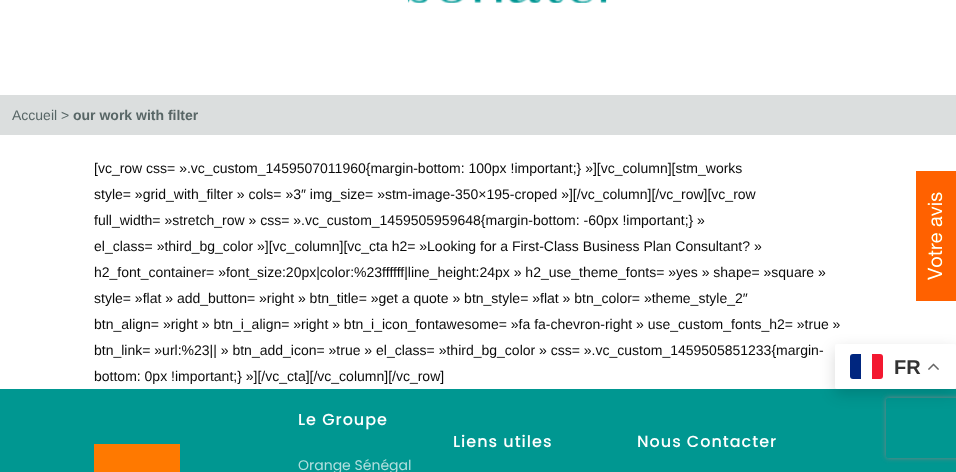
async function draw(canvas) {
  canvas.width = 956
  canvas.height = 472
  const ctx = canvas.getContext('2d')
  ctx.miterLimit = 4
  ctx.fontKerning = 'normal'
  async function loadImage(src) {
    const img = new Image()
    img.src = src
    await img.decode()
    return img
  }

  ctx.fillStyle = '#fff'
  ctx.fillRect(0, 0, 956, 472)
  ctx.drawImage(await loadImage('image0.png'), 407, 0, 200, 3)
  ctx.fillStyle = '#dbdede'
  ctx.fillRect(0, 95, 956, 40)
  ctx.font = '14px Liberation Sans'
  ctx.fillStyle = '#586666'
  ctx.fillText('Accueil >', 12, 120)
  ctx.font = 'bold 14px Liberation Sans'
  ctx.fillText('our work with filter', 73, 120)
  ctx.font = '14px Liberation Sans'
  ctx.fillStyle = '#0a0a0a'
  ctx.fillText('[vc_row css= ».vc_custom_1459507011960{margin-bottom: 100px !important;} »][vc_column][stm_works', 94, 173)
  ctx.fillText('style= »grid_with_filter » cols= »3″ img_size= »stm-image-350×195-croped »][/vc_column][/vc_row][vc_row', 94, 199)
  ctx.fillText('full_width= »stretch_row » css= ».vc_custom_1459505959648{margin-bottom: -60px !important;} »', 94, 225)
  ctx.fillText('el_class= »third_bg_color »][vc_column][vc_cta h2= »Looking for a First-Class Business Plan Consultant? »', 94, 251)
  ctx.fillText('h2_font_container= »font_size:20px|color:%23ffffff|line_height:24px » h2_use_theme_fonts= »yes » shape= »square »', 94, 277)
  ctx.fillText('style= »flat » add_button= »right » btn_title= »get a quote » btn_style= »flat » btn_color= »theme_style_2″', 94, 303)
  ctx.fillText('btn_align= »right » btn_i_align= »right » btn_i_icon_fontawesome= »fa fa-chevron-right » use_custom_fonts_h2= »true »', 94, 329)
  ctx.fillText('btn_link= »url:%23|| » btn_add_icon= »true » el_class= »third_bg_color » css= ».vc_custom_1459505851233{margin-', 94, 355)
  ctx.fillText('bottom: 0px !important;} »][/vc_cta][/vc_column][/vc_row]', 94, 381)
  ctx.fillStyle = '#009791'
  ctx.fillRect(0, 389, 956, 83)
  ctx.letterSpacing = '1px'
  ctx.font = '500 16px Poppins'
  ctx.fillStyle = '#fff'
  ctx.fillText('Le Groupe', 298, 425)
  ctx.letterSpacing = '0px'
  ctx.font = '14px Poppins'
  ctx.fillStyle = '#b2dfde'
  ctx.fillText('Orange Sénégal', 298, 470)
  ctx.letterSpacing = '1px'
  ctx.font = '500 16px Poppins'
  ctx.fillStyle = '#fff'
  ctx.fillText('Liens utiles', 453, 447)
  ctx.fillText('Nous Contacter', 637, 447)
  ctx.fillStyle = '#ff7900'
  ctx.fillRect(94, 444, 86, 28)
  ctx.drawImage(await loadImage('image1.png'), 916, 171, 40, 130)
  ctx.fillStyle = '#00000026'
  ctx.filter = 'blur(7.5px)'
  ctx.beginPath()
  ctx.roundRect(835, 349, 121, 45, 2)
  ctx.fill()
  ctx.filter = 'none'
  ctx.fillStyle = '#fff'
  ctx.beginPath()
  ctx.roundRect(835, 344, 121, 45, 2)
  ctx.fill()
  ctx.fillStyle = '#00267f'
  ctx.beginPath()
  ctx.roundRect(850, 354, 11, 25, [3, 0, 0, 3])
  ctx.fill()
  ctx.fillStyle = '#f31830'
  ctx.beginPath()
  ctx.roundRect(872, 354, 11, 25, [0, 3, 3, 0])
  ctx.fill()
  ctx.letterSpacing = '0px'
  ctx.font = 'bold 20px Liberation Sans'
  ctx.fillStyle = '#333'
  ctx.fillText('FR', 894, 374)
  ctx.drawImage(await loadImage('image2.png'), 928, 363, 11, 7)
  ctx.save()
  ctx.beginPath()
  ctx.moveTo(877, 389)
  ctx.lineTo(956, 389)
  ctx.lineTo(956, 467)
  ctx.lineTo(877, 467)
  ctx.closePath()
  ctx.moveTo(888, 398)
  ctx.lineTo(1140, 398)
  ctx.bezierCurveTo(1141, 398, 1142, 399, 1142, 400)
  ctx.lineTo(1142, 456)
  ctx.bezierCurveTo(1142, 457, 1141, 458, 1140, 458)
  ctx.lineTo(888, 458)
  ctx.bezierCurveTo(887, 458, 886, 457, 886, 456)
  ctx.lineTo(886, 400)
  ctx.bezierCurveTo(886, 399, 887, 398, 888, 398)
  ctx.closePath()
  ctx.clip('evenodd')
  ctx.fillStyle = '#808080'
  ctx.filter = 'blur(2.5px)'
  ctx.beginPath()
  ctx.roundRect(886, 398, 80, 60, 2)
  ctx.fill()
  ctx.filter = 'none'
  ctx.restore()
}

draw(document.querySelector('canvas'))
